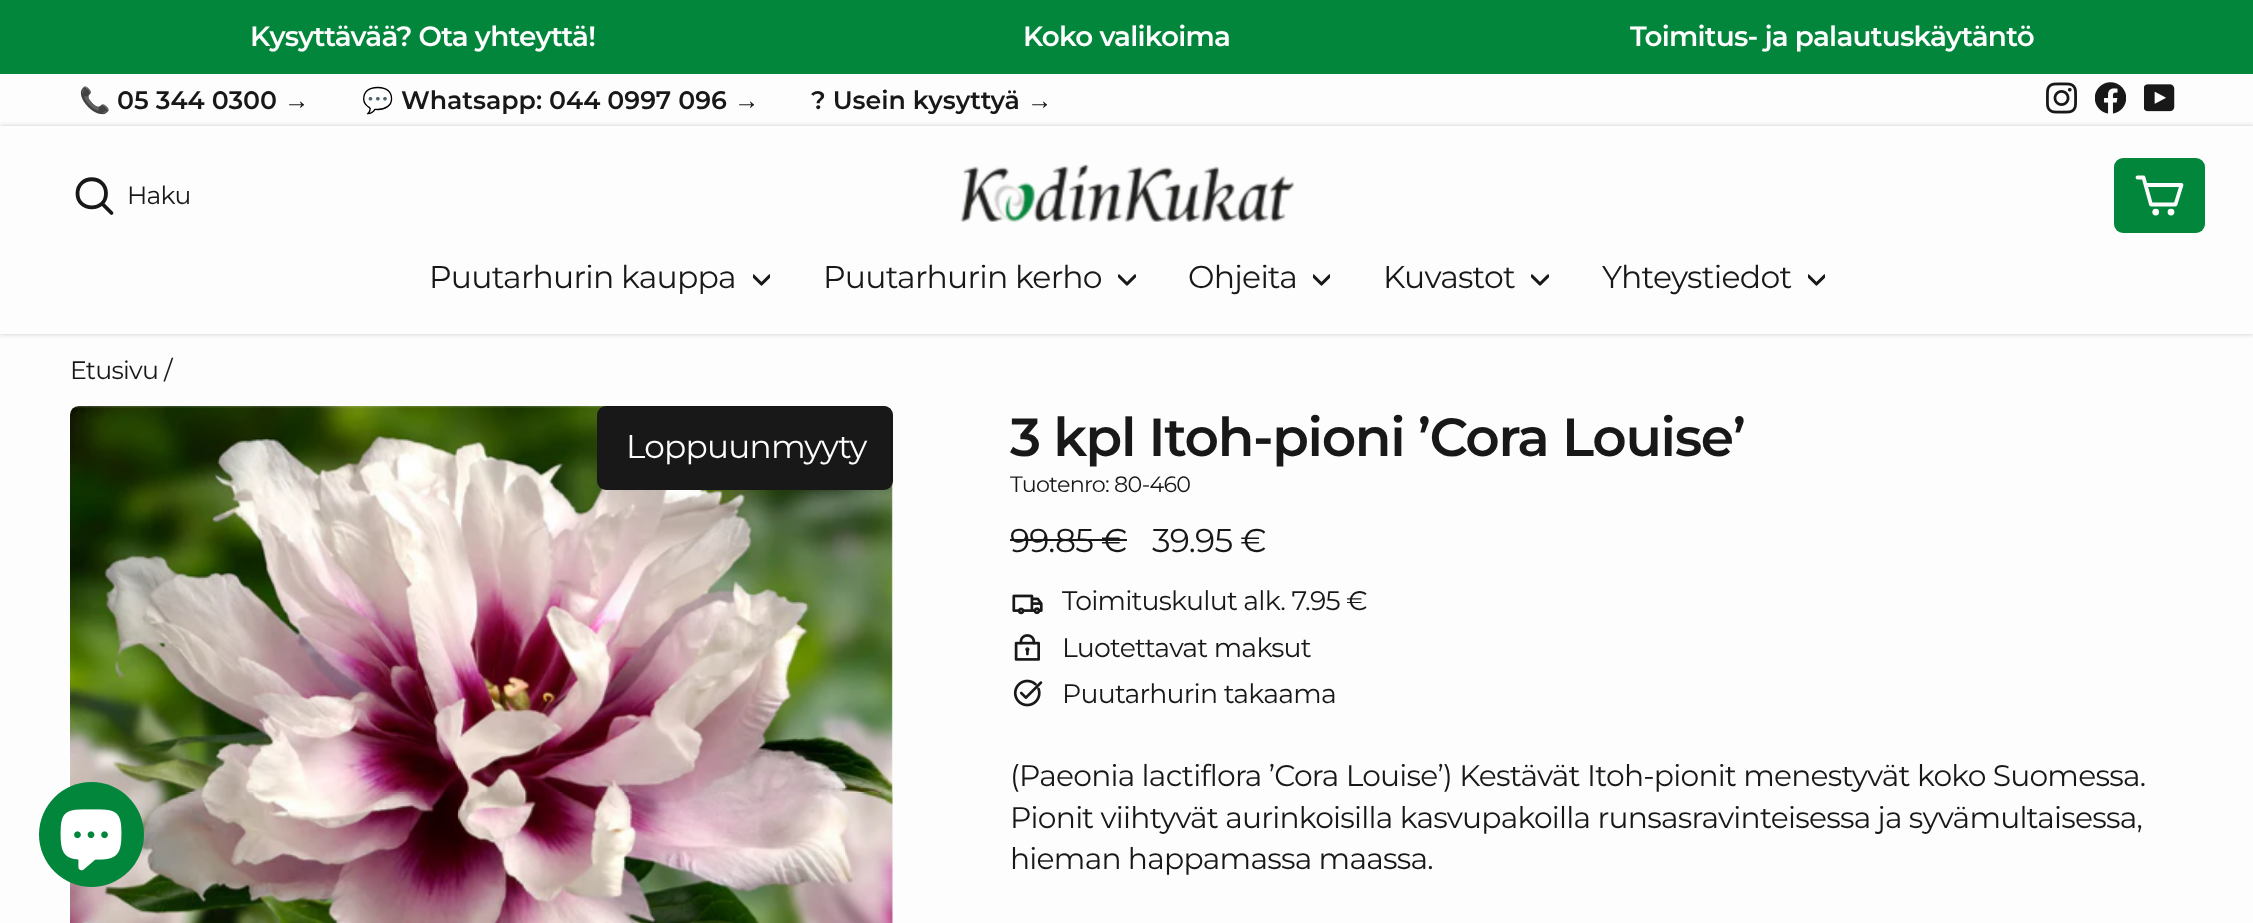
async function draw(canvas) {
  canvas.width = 2253
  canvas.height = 923
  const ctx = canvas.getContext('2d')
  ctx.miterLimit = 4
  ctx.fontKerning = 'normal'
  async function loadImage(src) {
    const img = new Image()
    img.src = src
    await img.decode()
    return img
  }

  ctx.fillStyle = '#fdfdfd'
  ctx.fillRect(0, 0, 2253, 923)
  ctx.fillStyle = '#02863c'
  ctx.fillRect(0, 0, 2253, 74)
  ctx.letterSpacing = '-0.75px'
  ctx.font = '600 27.8px Montserrat'
  ctx.fillStyle = '#fdfdfd'
  ctx.fillText('Kysyttävää? Ota yhteyttä!', 250, 46)
  ctx.fillText('Koko valikoima', 1023, 46)
  ctx.fillText('Toimitus- ja palautuskäytäntö', 1630, 46)
  ctx.letterSpacing = '0px'
  ctx.font = 'bold 25.25px Noto Color Emoji'
  ctx.fillStyle = '#181818'
  ctx.fillText('📞', 79, 109)
  ctx.font = '600 25.25px Montserrat'
  ctx.fillText('05 344 0300', 117, 109)
  ctx.font = 'bold 25.25px Liberation Sans'
  ctx.fillText('→', 284, 109)
  ctx.font = 'bold 25.25px Noto Color Emoji'
  ctx.fillText('💬', 362, 109)
  ctx.font = '600 25.25px Montserrat'
  ctx.fillText('Whatsapp: 044 0997 096', 401, 109)
  ctx.font = 'bold 25.25px Liberation Sans'
  ctx.fillText('→', 734, 109)
  ctx.font = '600 25.25px Montserrat'
  ctx.fillText('? Usein kysyttyä', 811, 109)
  ctx.font = 'bold 25.25px Liberation Sans'
  ctx.fillText('→', 1027, 109)
  ctx.drawImage(await loadImage('image0.png'), 2046, 82, 31, 32)
  ctx.drawImage(await loadImage('image1.png'), 2095, 82, 31, 32)
  ctx.drawImage(await loadImage('image2.png'), 2144, 84, 31, 28)
  ctx.save()
  ctx.beginPath()
  ctx.moveTo(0, 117)
  ctx.lineTo(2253, 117)
  ctx.lineTo(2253, 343)
  ctx.lineTo(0, 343)
  ctx.closePath()
  ctx.moveTo(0, 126)
  ctx.lineTo(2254, 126)
  ctx.lineTo(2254, 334)
  ctx.lineTo(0, 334)
  ctx.closePath()
  ctx.clip('evenodd')
  ctx.fillStyle = '#00000033'
  ctx.filter = 'blur(2.5px)'
  ctx.beginPath()
  ctx.rect(0, 126, 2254, 208)
  ctx.fill()
  ctx.filter = 'none'
  ctx.restore()
  ctx.beginPath()
  ctx.moveTo(106, 193.5)
  ctx.bezierCurveTo(106, 212, 77.5, 212, 77.5, 193.5)
  ctx.bezierCurveTo(77.5, 174.5, 106, 174.5, 106, 193.5)
  ctx.closePath()
  ctx.moveTo(111.5, 213)
  ctx.lineTo(102, 203.5)
  ctx.strokeStyle = '#181818'
  ctx.lineWidth = 3.8
  ctx.lineCap = 'round'
  ctx.lineJoin = 'round'
  ctx.stroke()
  ctx.letterSpacing = '-0.75px'
  ctx.font = '25px Montserrat'
  ctx.fillText('Haku', 127, 204)
  ctx.drawImage(await loadImage('image3.png'), 960, 164, 334, 58)
  ctx.fillStyle = '#02863c'
  ctx.beginPath()
  ctx.roundRect(2114, 158, 91, 75, 9)
  ctx.fill()
  ctx.beginPath()
  ctx.moveTo(2145.5, 185)
  ctx.lineTo(2181.5, 185)
  ctx.lineTo(2175.5, 204.5)
  ctx.lineTo(2151, 204.5)
  ctx.lineTo(2143.5, 177.5)
  ctx.lineTo(2137.5, 177.5)
  ctx.strokeStyle = '#fdfdfd'
  ctx.stroke()
  ctx.beginPath()
  ctx.arc(2155.7, 212.1, 1.5, 0, 2 * Math.PI)
  ctx.stroke()
  ctx.beginPath()
  ctx.arc(2171, 212.1, 1.5, 0, 2 * Math.PI)
  ctx.stroke()
  ctx.font = '31.5px Montserrat'
  ctx.fillStyle = '#181818'
  ctx.fillText('Puutarhurin kauppa', 429, 288)
  ctx.save()
  ctx.beginPath()
  ctx.rect(753, 271, 17, 18)
  ctx.clip()
  ctx.beginPath()
  ctx.moveTo(753.5, 276)
  ctx.lineTo(761.5, 284)
  ctx.lineTo(769.5, 276)
  ctx.strokeStyle = '#181818'
  ctx.lineWidth = 3.1
  ctx.stroke()
  ctx.restore()
  ctx.fillText('Puutarhurin kerho', 823, 288)
  ctx.save()
  ctx.beginPath()
  ctx.rect(1118, 271, 18, 18)
  ctx.clip()
  ctx.beginPath()
  ctx.moveTo(1119, 276)
  ctx.lineTo(1127, 284)
  ctx.lineTo(1135, 276)
  ctx.strokeStyle = '#181818'
  ctx.lineWidth = 3.1
  ctx.stroke()
  ctx.restore()
  ctx.fillText('Ohjeita', 1188, 288)
  ctx.save()
  ctx.beginPath()
  ctx.rect(1313, 271, 17, 18)
  ctx.clip()
  ctx.beginPath()
  ctx.moveTo(1313.5, 276)
  ctx.lineTo(1321.5, 284)
  ctx.lineTo(1329.5, 276)
  ctx.strokeStyle = '#181818'
  ctx.lineWidth = 3.1
  ctx.stroke()
  ctx.restore()
  ctx.fillText('Kuvastot', 1383, 288)
  ctx.save()
  ctx.beginPath()
  ctx.rect(1531, 271, 18, 18)
  ctx.clip()
  ctx.beginPath()
  ctx.moveTo(1532, 276)
  ctx.lineTo(1540, 284)
  ctx.lineTo(1548, 276)
  ctx.strokeStyle = '#181818'
  ctx.lineWidth = 3.1
  ctx.stroke()
  ctx.restore()
  ctx.fillText('Yhteystiedot', 1602, 288)
  ctx.save()
  ctx.beginPath()
  ctx.rect(1808, 271, 17, 18)
  ctx.clip()
  ctx.beginPath()
  ctx.moveTo(1808.5, 276)
  ctx.lineTo(1816.5, 284)
  ctx.lineTo(1824.5, 276)
  ctx.strokeStyle = '#181818'
  ctx.lineWidth = 3.1
  ctx.stroke()
  ctx.restore()
  ctx.font = '25.25px Montserrat'
  ctx.fillText('Etusivu /', 70, 379)
  ctx.drawImage(await loadImage('image4.png'), 70, 406, 823, 517)
  ctx.beginPath()
  ctx.roundRect(597, 406, 296, 84, 9)
  ctx.fill()
  ctx.font = '32.75px Montserrat'
  ctx.fillStyle = '#fdfdfd'
  ctx.fillText('Loppuunmyyty', 626, 458)
  ctx.letterSpacing = '-1.35px'
  ctx.font = '600 53.5px Montserrat'
  ctx.fillStyle = '#181818'
  ctx.fillText('3 kpl Itoh-pioni ’Cora Louise’', 1010, 456)
  ctx.letterSpacing = '-0.75px'
  ctx.font = '22.25px Montserrat'
  ctx.fillText('Tuotenro: 80-460', 1010, 492)
  ctx.font = '33px Montserrat'
  ctx.fillText('99.85 €', 1010, 552)
  ctx.fillRect(1010, 539, 117, 2)
  ctx.fillText('39.95 €', 1152, 552)
  ctx.drawImage(await loadImage('image5.png'), 1012, 594, 31, 21)
  ctx.font = '26.75px Montserrat'
  ctx.fillText('Toimituskulut alk. 7.95 €', 1062, 610)
  ctx.drawImage(await loadImage('image6.png'), 1014, 634, 26, 27)
  ctx.fillText('Luotettavat maksut', 1062, 657)
  ctx.drawImage(await loadImage('image7.png'), 1013, 679, 30, 28)
  ctx.fillText('Puutarhurin takaama', 1062, 703)
  ctx.font = '29.75px Montserrat'
  ctx.fillText('(Paeonia lactiflora ’Cora Louise’) Kestävät Itoh-pionit menestyvät koko Suomessa.', 1010, 786)
  ctx.fillText('Pionit viihtyvät aurinkoisilla kasvupakoilla runsasravinteisessa ja syvämultaisessa,', 1010, 828)
  ctx.fillText('hieman happamassa maassa.', 1010, 869)
  ctx.fillStyle = '#02863c'
  ctx.beginPath()
  ctx.arc(91.5, 834.5, 52.5, 0, 2 * Math.PI)
  ctx.fill()
  ctx.drawImage(await loadImage('image8.png'), 60, 809, 62, 62)
}

draw(document.querySelector('canvas'))
